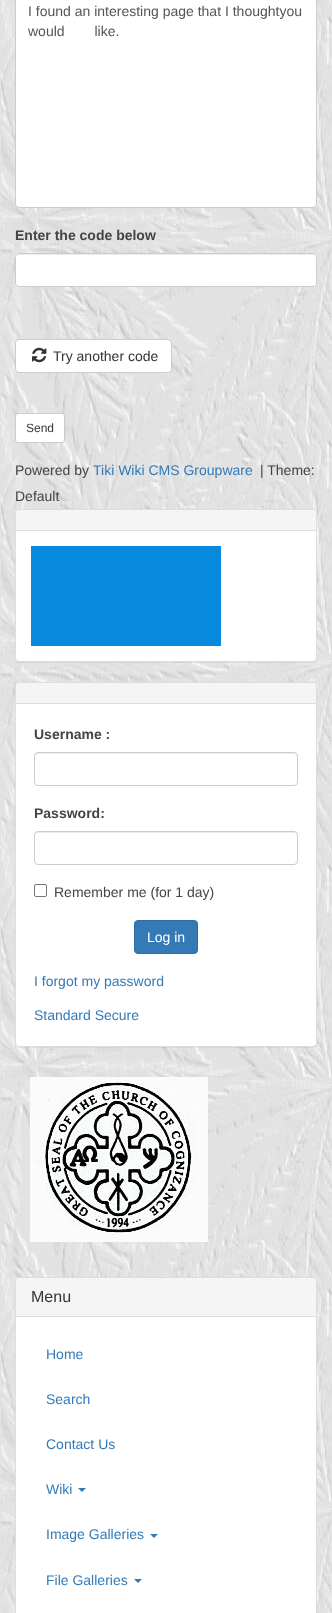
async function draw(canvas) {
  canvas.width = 332
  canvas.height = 1613
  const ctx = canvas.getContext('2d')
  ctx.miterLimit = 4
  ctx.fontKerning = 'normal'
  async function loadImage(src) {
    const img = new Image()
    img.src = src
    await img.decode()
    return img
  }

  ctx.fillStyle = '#fff'
  ctx.fillRect(0, 0, 332, 1613)
  ctx.drawImage(await loadImage('image0.png'), 0, 0, 332, 1613)
  ctx.beginPath()
  ctx.roundRect(15.5, -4.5, 301, 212, 3.5)
  ctx.fill()
  ctx.strokeStyle = '#ccc'
  ctx.stroke()
  ctx.font = '14px Liberation Sans'
  ctx.fillStyle = '#555'
  ctx.fillText('I found an interesting page that I thoughtyou', 28, 16)
  ctx.wordSpacing = '26px'
  ctx.fillText('would like.', 28, 36)
  ctx.wordSpacing = '0px'
  ctx.font = 'bold 14px Liberation Sans'
  ctx.fillStyle = '#444'
  ctx.fillText('Enter the code below', 15, 240)
  ctx.fillStyle = '#fff'
  ctx.beginPath()
  ctx.roundRect(15, 253, 302, 34, 4)
  ctx.fill()
  ctx.fillStyle = '#ececec'
  ctx.beginPath()
  ctx.moveTo(19, 255)
  ctx.lineTo(313, 255)
  ctx.bezierCurveTo(315, 255, 316, 256, 316, 258)
  ctx.lineTo(315, 255)
  ctx.lineTo(314, 254)
  ctx.lineTo(19, 254)
  ctx.bezierCurveTo(17, 254, 16, 256, 16, 258)
  ctx.bezierCurveTo(16, 256, 17, 255, 19, 255)
  ctx.closePath()
  ctx.fill()
  ctx.beginPath()
  ctx.roundRect(15.5, 253.5, 301, 33, 3.5)
  ctx.stroke()
  ctx.fillStyle = '#fff'
  ctx.beginPath()
  ctx.roundRect(15.5, 339.5, 156, 33, 3.5)
  ctx.fill()
  ctx.stroke()
  ctx.drawImage(await loadImage('image1.png'), 32, 347, 15, 16)
  ctx.font = '14px Liberation Sans'
  ctx.fillStyle = '#333'
  ctx.fillText('Try another code', 53, 361)
  ctx.fillStyle = '#fff'
  ctx.beginPath()
  ctx.roundRect(15.5, 413.5, 49, 29, 2.5)
  ctx.fill()
  ctx.stroke()
  ctx.font = '12px Liberation Sans'
  ctx.fillStyle = '#333'
  ctx.fillText('Send', 26, 432)
  ctx.font = '14px Liberation Sans'
  ctx.fillStyle = '#444'
  ctx.fillText('Powered by', 15, 475)
  ctx.fillStyle = '#337ab7'
  ctx.fillText('Tiki Wiki CMS Groupware', 93, 475)
  ctx.fillStyle = '#444'
  ctx.fillText('| Theme:', 260, 475)
  ctx.fillText('Default', 15, 501)
  ctx.fillStyle = '#0000000d'
  ctx.filter = 'blur(0.5px)'
  ctx.beginPath()
  ctx.roundRect(15, 510, 302, 153, 4)
  ctx.fill()
  ctx.filter = 'none'
  ctx.fillStyle = '#fff'
  ctx.beginPath()
  ctx.roundRect(15.5, 509.5, 301, 152, 3.5)
  ctx.fill()
  ctx.strokeStyle = '#ddd'
  ctx.stroke()
  ctx.fillStyle = '#f5f5f5'
  ctx.beginPath()
  ctx.roundRect(16, 510, 300, 21, [3, 3, 0, 0])
  ctx.fill()
  ctx.fillStyle = '#ddd'
  ctx.fillRect(16, 530, 300, 1)
  ctx.fillStyle = '#078add'
  ctx.fillRect(31, 546, 190, 100)
  ctx.fillStyle = '#0000000d'
  ctx.filter = 'blur(0.5px)'
  ctx.beginPath()
  ctx.roundRect(15, 683, 302, 365, 4)
  ctx.fill()
  ctx.filter = 'none'
  ctx.fillStyle = '#fff'
  ctx.beginPath()
  ctx.roundRect(15.5, 682.5, 301, 364, 3.5)
  ctx.fill()
  ctx.stroke()
  ctx.fillStyle = '#f5f5f5'
  ctx.beginPath()
  ctx.roundRect(16, 683, 300, 21, [3, 3, 0, 0])
  ctx.fill()
  ctx.fillStyle = '#ddd'
  ctx.fillRect(16, 703, 300, 1)
  ctx.font = 'bold 14px Liberation Sans'
  ctx.fillStyle = '#444'
  ctx.fillText('Username :', 34, 739)
  ctx.fillStyle = '#ececec'
  ctx.beginPath()
  ctx.moveTo(38, 754)
  ctx.lineTo(295, 754)
  ctx.lineTo(297, 755)
  ctx.lineTo(297, 757)
  ctx.lineTo(297, 756)
  ctx.bezierCurveTo(297, 754, 296, 753, 294, 753)
  ctx.lineTo(38, 753)
  ctx.bezierCurveTo(36, 753, 35, 754, 35, 756)
  ctx.lineTo(35, 757)
  ctx.bezierCurveTo(35, 755, 36, 754, 38, 754)
  ctx.closePath()
  ctx.fill()
  ctx.beginPath()
  ctx.roundRect(34.5, 752.5, 263, 33, 3.5)
  ctx.strokeStyle = '#ccc'
  ctx.stroke()
  ctx.fillStyle = '#444'
  ctx.fillText('Password:', 34, 818)
  ctx.fillStyle = '#ececec'
  ctx.beginPath()
  ctx.moveTo(38, 833)
  ctx.lineTo(295, 833)
  ctx.lineTo(297, 834)
  ctx.lineTo(297, 836)
  ctx.lineTo(297, 835)
  ctx.bezierCurveTo(297, 833, 296, 832, 294, 832)
  ctx.lineTo(38, 832)
  ctx.bezierCurveTo(36, 832, 35, 833, 35, 835)
  ctx.lineTo(35, 836)
  ctx.bezierCurveTo(35, 834, 36, 833, 38, 833)
  ctx.closePath()
  ctx.fill()
  ctx.beginPath()
  ctx.roundRect(34.5, 831.5, 263, 33, 3.5)
  ctx.stroke()
  ctx.beginPath()
  ctx.roundRect(34.5, 884.5, 12, 12, 1.5)
  ctx.strokeStyle = '#767676'
  ctx.stroke()
  ctx.font = '14px Liberation Sans'
  ctx.fillStyle = '#444'
  ctx.fillText('Remember me (for 1 day)', 54, 897)
  ctx.fillStyle = '#337ab7'
  ctx.beginPath()
  ctx.roundRect(134.5, 920.5, 63, 33, 3.5)
  ctx.fill()
  ctx.strokeStyle = '#2e6da4'
  ctx.stroke()
  ctx.fillStyle = '#fff'
  ctx.fillText('Log in', 147, 942)
  ctx.fillStyle = '#337ab7'
  ctx.fillText('I forgot my password', 34, 986)
  ctx.fillText('Standard Secure', 34, 1020)
  ctx.drawImage(await loadImage('image2.png'), 30, 1077, 178, 165)
  ctx.fillStyle = '#fff'
  ctx.beginPath()
  ctx.roundRect(15.5, 1277.5, 301, 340, 3.5)
  ctx.fill()
  ctx.strokeStyle = '#ddd'
  ctx.stroke()
  ctx.fillStyle = '#f5f5f5'
  ctx.beginPath()
  ctx.roundRect(16, 1278, 300, 39, [3, 3, 0, 0])
  ctx.fill()
  ctx.fillStyle = '#ddd'
  ctx.fillRect(16, 1316, 300, 1)
  ctx.font = '16px Liberation Sans'
  ctx.fillStyle = '#333'
  ctx.fillText('Menu', 31, 1302)
  ctx.font = '14px Liberation Sans'
  ctx.fillStyle = '#337ab7'
  ctx.fillText('Home', 46, 1359)
  ctx.fillText('Search', 46, 1404)
  ctx.fillText('Contact Us', 46, 1449)
  ctx.fillText('Wiki', 46, 1494)
  ctx.beginPath()
  ctx.moveTo(78, 1488)
  ctx.lineTo(86, 1488)
  ctx.lineTo(82, 1492)
  ctx.closePath()
  ctx.fill()
  ctx.fillText('Image Galleries', 46, 1539)
  ctx.beginPath()
  ctx.moveTo(150, 1534)
  ctx.lineTo(158, 1534)
  ctx.lineTo(154, 1538)
  ctx.closePath()
  ctx.fill()
  ctx.fillText('File Galleries', 46, 1585)
  ctx.beginPath()
  ctx.moveTo(134, 1579)
  ctx.lineTo(142, 1579)
  ctx.lineTo(138, 1583)
  ctx.closePath()
  ctx.fill()
}

draw(document.querySelector('canvas'))
